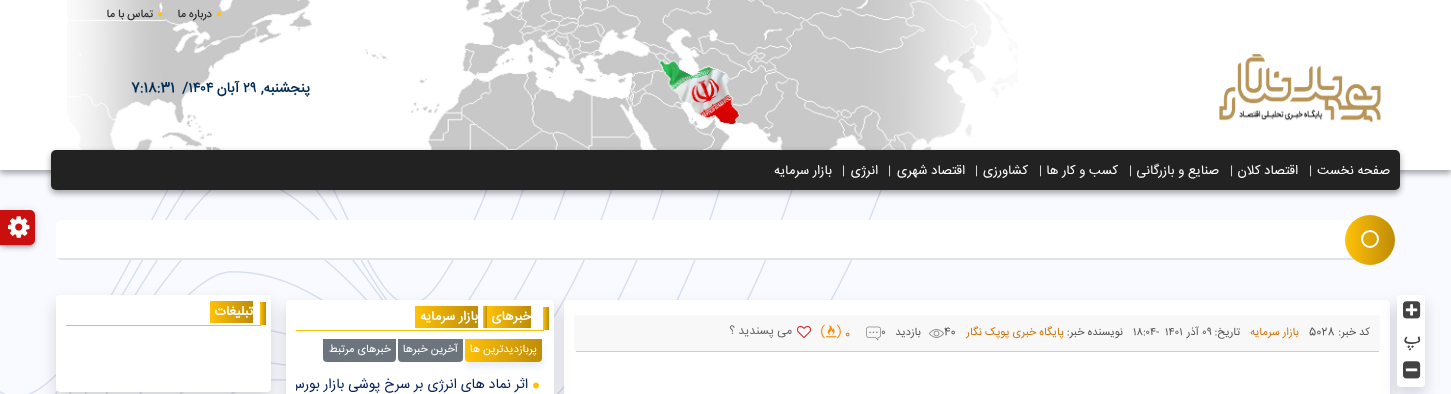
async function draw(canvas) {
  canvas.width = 1451
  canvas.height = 394
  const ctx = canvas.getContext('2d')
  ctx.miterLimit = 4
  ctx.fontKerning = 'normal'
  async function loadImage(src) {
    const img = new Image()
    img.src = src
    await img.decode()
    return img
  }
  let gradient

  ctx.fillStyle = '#f8faff'
  ctx.fillRect(0, 0, 1451, 394)
  ctx.drawImage(await loadImage('image0.png'), 0, 190, 882, 204)
  ctx.fillStyle = '#0000003b'
  ctx.filter = 'blur(3px)'
  ctx.beginPath()
  ctx.rect(0, 3, 1451, 170)
  ctx.fill()
  ctx.filter = 'none'
  ctx.fillStyle = '#00000029'
  ctx.filter = 'blur(3px)'
  ctx.beginPath()
  ctx.rect(0, 3, 1451, 170)
  ctx.fill()
  ctx.filter = 'none'
  ctx.fillStyle = '#fff'
  ctx.fillRect(0, 0, 1451, 170)
  ctx.drawImage(await loadImage('image1.png'), 67, 0, 951, 150)
  ctx.drawImage(await loadImage('image2.png'), 217, 12, 5, 5)
  ctx.direction = 'rtl'
  ctx.font = '500 11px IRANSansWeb'
  ctx.fillStyle = '#333'
  ctx.fillText('درباره ما', 212, 17)
  ctx.drawImage(await loadImage('image3.png'), 158, 12, 5, 5)
  ctx.fillText('تماس با ما', 153, 17)
  ctx.drawImage(await loadImage('image4.png'), 1219, 54, 162, 69)
  ctx.font = 'bold 14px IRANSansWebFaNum'
  ctx.fillStyle = '#002d56'
  ctx.fillText('پنجشنبه,', 310, 92)
  ctx.direction = 'ltr'
  ctx.fillText('۲۹', 243, 92)
  ctx.direction = 'rtl'
  ctx.fillText('آبان', 239, 92)
  ctx.direction = 'ltr'
  ctx.fillText('/۱۴۰۴', 182, 92)
  ctx.fillText('7:18:31', 131, 92)
  ctx.fillStyle = '#0000003b'
  ctx.filter = 'blur(3px)'
  ctx.beginPath()
  ctx.roundRect(51, 153, 1349, 40, 5)
  ctx.fill()
  ctx.filter = 'none'
  ctx.fillStyle = '#00000029'
  ctx.filter = 'blur(3px)'
  ctx.beginPath()
  ctx.roundRect(51, 153, 1349, 40, 5)
  ctx.fill()
  ctx.filter = 'none'
  ctx.fillStyle = '#222'
  ctx.beginPath()
  ctx.roundRect(51, 150, 1349, 40, 5)
  ctx.fill()
  ctx.direction = 'rtl'
  ctx.font = '13px IRANSansWeb'
  ctx.fillStyle = '#fff'
  ctx.fillText('صفحه نخست', 1390, 174)
  ctx.direction = 'ltr'
  ctx.font = '12px IRANSansWebFaNum'
  ctx.fillStyle = '#eee'
  ctx.fillText('|', 1309, 174)
  ctx.direction = 'rtl'
  ctx.font = '13px IRANSansWeb'
  ctx.fillStyle = '#fff'
  ctx.fillText('اقتصاد کلان', 1298, 174)
  ctx.direction = 'ltr'
  ctx.font = '12px IRANSansWebFaNum'
  ctx.fillStyle = '#eee'
  ctx.fillText('|', 1230, 174)
  ctx.direction = 'rtl'
  ctx.font = '13px IRANSansWeb'
  ctx.fillStyle = '#fff'
  ctx.fillText('صنایع و بازرگانی', 1219, 174)
  ctx.direction = 'ltr'
  ctx.font = '12px IRANSansWebFaNum'
  ctx.fillStyle = '#eee'
  ctx.fillText('|', 1129, 174)
  ctx.direction = 'rtl'
  ctx.font = '13px IRANSansWeb'
  ctx.fillStyle = '#fff'
  ctx.fillText('کسب و کار ها', 1118, 174)
  ctx.direction = 'ltr'
  ctx.font = '12px IRANSansWebFaNum'
  ctx.fillStyle = '#eee'
  ctx.fillText('|', 1039, 174)
  ctx.direction = 'rtl'
  ctx.font = '13px IRANSansWeb'
  ctx.fillStyle = '#fff'
  ctx.fillText('کشاورزی', 1028, 174)
  ctx.direction = 'ltr'
  ctx.font = '12px IRANSansWebFaNum'
  ctx.fillStyle = '#eee'
  ctx.fillText('|', 975, 174)
  ctx.direction = 'rtl'
  ctx.font = '13px IRANSansWeb'
  ctx.fillStyle = '#fff'
  ctx.fillText('اقتصاد شهری', 965, 174)
  ctx.direction = 'ltr'
  ctx.font = '12px IRANSansWebFaNum'
  ctx.fillStyle = '#eee'
  ctx.fillText('|', 888, 174)
  ctx.direction = 'rtl'
  ctx.font = '13px IRANSansWeb'
  ctx.fillStyle = '#fff'
  ctx.fillText('انرژی', 878, 174)
  ctx.direction = 'ltr'
  ctx.font = '12px IRANSansWebFaNum'
  ctx.fillStyle = '#eee'
  ctx.fillText('|', 842, 174)
  ctx.direction = 'rtl'
  ctx.font = '13px IRANSansWeb'
  ctx.fillStyle = '#fff'
  ctx.fillText('بازار سرمایه', 832, 174)
  ctx.fillStyle = '#0000001f'
  ctx.filter = 'blur(4px)'
  ctx.beginPath()
  ctx.roundRect(0, 211, 35, 35, 5)
  ctx.fill()
  ctx.filter = 'none'
  ctx.fillStyle = '#00000033'
  ctx.filter = 'blur(1.5px)'
  ctx.beginPath()
  ctx.roundRect(2, 215, 31, 31, 3)
  ctx.fill()
  ctx.filter = 'none'
  ctx.fillStyle = '#00000024'
  ctx.filter = 'blur(2px)'
  ctx.beginPath()
  ctx.roundRect(0, 213, 35, 35, 5)
  ctx.fill()
  ctx.filter = 'none'
  ctx.fillStyle = '#ca0f0f'
  ctx.beginPath()
  ctx.roundRect(0, 210, 35, 35, [0, 5, 5, 0])
  ctx.fill()
  ctx.drawImage(await loadImage('image5.png'), 8, 216, 22, 22)
  ctx.fillStyle = '#fff'
  ctx.beginPath()
  ctx.roundRect(56, 220, 1339, 40, [5, 20, 20, 5])
  ctx.fill()
  ctx.save()
  ctx.beginPath()
  ctx.roundRect(56, 220, 1339, 40, [5, 20, 20, 5])
  ctx.clip()
  ctx.fillStyle = '#e2e3e3'
  ctx.fillRect(56, 258, 1299, 2)
  ctx.restore()
  gradient = ctx.createLinearGradient(1345, 240, 1395, 240)
  gradient.addColorStop(0, '#ffc107')
  gradient.addColorStop(1, '#be8c07')
  ctx.fillStyle = gradient
  ctx.beginPath()
  ctx.arc(1370, 240, 25, 0, 2 * Math.PI)
  ctx.fill()
  ctx.beginPath()
  ctx.arc(1370, 239, 8, 0, 2 * Math.PI)
  ctx.strokeStyle = '#fff'
  ctx.lineWidth = 2
  ctx.stroke()
  ctx.fillStyle = '#00000026'
  ctx.filter = 'blur(8px)'
  ctx.beginPath()
  ctx.roundRect(564, 308, 826, 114, 4)
  ctx.fill()
  ctx.filter = 'none'
  ctx.fillStyle = '#fff'
  ctx.beginPath()
  ctx.roundRect(564, 300, 826, 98, 4)
  ctx.fill()
  ctx.fillStyle = '#f8f8f8'
  ctx.beginPath()
  ctx.roundRect(574, 315, 806, 37, 3)
  ctx.fill()
  ctx.fillStyle = '#ccc'
  ctx.fillRect(576, 351, 803, 1)
  ctx.font = '11px IRANSansWebFaNum'
  ctx.fillStyle = '#555'
  ctx.fillText('کد خبر:', 1370, 335)
  ctx.direction = 'ltr'
  ctx.fillText('5028', 1309, 335)
  ctx.direction = 'rtl'
  ctx.fillStyle = '#ce7507'
  ctx.fillText('بازار سرمایه', 1299, 335)
  ctx.fillStyle = '#555'
  ctx.fillText('تاریخ:', 1240, 335)
  ctx.direction = 'ltr'
  ctx.fillText('۰۹', 1202, 335)
  ctx.direction = 'rtl'
  ctx.fillText('آذر', 1199, 335)
  ctx.direction = 'ltr'
  ctx.fillText('۱۴۰۱', 1165, 335)
  ctx.fillText('۱۸:۰۴-', 1133, 335)
  ctx.direction = 'rtl'
  ctx.fillText('نویسنده خبر:', 1123, 335)
  ctx.fillStyle = '#ce7507'
  ctx.fillText('پایگاه خبری پوپک نگار', 1064, 335)
  ctx.direction = 'ltr'
  ctx.fillStyle = '#555'
  ctx.fillText('40', 944, 335)
  ctx.drawImage(await loadImage('image6.png'), 929, 329, 15, 9)
  ctx.direction = 'rtl'
  ctx.fillText('بازدید', 921, 335)
  ctx.direction = 'ltr'
  ctx.fillText('۰', 881, 335)
  ctx.drawImage(await loadImage('image7.png'), 866, 326, 15, 15)
  ctx.fillStyle = '#ce7507'
  ctx.fillText('0', 845, 337)
  ctx.drawImage(await loadImage('image8.png'), 821, 324, 20, 15)
  ctx.drawImage(await loadImage('image9.png'), 797, 326, 14, 12)
  ctx.direction = 'rtl'
  ctx.font = '12px IRANSansWebFaNum'
  ctx.fillStyle = '#666'
  ctx.fillText('می پسندید ؟', 792, 334)
  ctx.fillStyle = '#00000026'
  ctx.filter = 'blur(8px)'
  ctx.beginPath()
  ctx.roundRect(286, 308, 268, 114, 4)
  ctx.fill()
  ctx.filter = 'none'
  ctx.fillStyle = '#fff'
  ctx.beginPath()
  ctx.roundRect(286, 300, 268, 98, 4)
  ctx.fill()
  ctx.fillStyle = '#ffc107'
  ctx.fillRect(296, 330, 248, 1)
  gradient = ctx.createLinearGradient(487, 317, 531, 317)
  gradient.addColorStop(0, '#ffc107')
  gradient.addColorStop(1, '#be8c07')
  ctx.fillStyle = gradient
  ctx.fillRect(487, 306, 44, 22)
  gradient = ctx.createLinearGradient(483, 317, 487, 317)
  gradient.addColorStop(0, '#ffc107')
  gradient.addColorStop(1, '#be8c07')
  ctx.fillStyle = gradient
  ctx.fillRect(483, 306, 4, 22)
  gradient = ctx.createLinearGradient(543, 319, 549, 319)
  gradient.addColorStop(0, '#ffc107')
  gradient.addColorStop(1, '#be8c07')
  ctx.fillStyle = gradient
  ctx.fillRect(543, 307, 6, 23)
  ctx.fillStyle = '#ffc107'
  ctx.beginPath()
  ctx.roundRect(543, 307, 1, 23, 0.5)
  ctx.fill()
  ctx.font = 'bold 13px IRANSansWebFaNum'
  ctx.fillStyle = '#fff'
  ctx.fillText('خبرهای', 531, 320)
  gradient = ctx.createLinearGradient(415, 317, 478, 317)
  gradient.addColorStop(0, '#ffc107')
  gradient.addColorStop(1, '#be8c07')
  ctx.fillStyle = gradient
  ctx.fillRect(415, 306, 63, 22)
  ctx.fillStyle = '#fff'
  ctx.fillText('بازار سرمایه', 478, 320)
  ctx.fillStyle = '#1c4c9c1a'
  ctx.filter = 'blur(3.5px)'
  ctx.beginPath()
  ctx.roundRect(465, 344, 77, 23, 4)
  ctx.fill()
  ctx.filter = 'none'
  gradient = ctx.createLinearGradient(465, 351, 542, 351)
  gradient.addColorStop(0, '#ffc107')
  gradient.addColorStop(1, '#be8c07')
  ctx.fillStyle = gradient
  ctx.beginPath()
  ctx.roundRect(465, 339, 77, 23, [0, 0, 4, 4])
  ctx.fill()
  ctx.font = '11px IRANSansWebFaNum'
  ctx.fillStyle = '#fff'
  ctx.fillText('پربازدیدترین ها', 537, 352)
  ctx.fillStyle = '#6c757d'
  ctx.beginPath()
  ctx.roundRect(398, 339, 65, 23, [0, 0, 4, 4])
  ctx.fill()
  ctx.fillStyle = '#fff'
  ctx.fillText('آخرین خبرها', 458, 352)
  ctx.fillStyle = '#6c757d'
  ctx.beginPath()
  ctx.roundRect(323, 339, 73, 23, [0, 0, 4, 4])
  ctx.fill()
  ctx.fillStyle = '#fff'
  ctx.fillText('خبرهای مرتبط', 391, 352)
  ctx.drawImage(await loadImage('image10.png'), 533, 382, 6, 7)
  ctx.save()
  ctx.beginPath()
  ctx.rect(296, 377, 248, 17)
  ctx.clip()
  ctx.font = '14px IRANSansWebFaNum'
  ctx.fillStyle = '#062160'
  ctx.fillText('اثر نماد های انرژی بر سرخ پوشی بازار بورس', 528, 388)
  ctx.restore()
  ctx.fillStyle = '#00000026'
  ctx.filter = 'blur(8px)'
  ctx.beginPath()
  ctx.roundRect(1397, 303, 28, 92, 4)
  ctx.fill()
  ctx.filter = 'none'
  ctx.fillStyle = '#fff'
  ctx.beginPath()
  ctx.roundRect(1397, 295, 28, 92, 4)
  ctx.fill()
  ctx.drawImage(await loadImage('image11.png'), 1403, 301, 18, 18)
  ctx.font = 'italic 20px IRANSansWebFaNum'
  ctx.fillStyle = '#434343'
  ctx.fillText('پ', 1420, 344)
  ctx.drawImage(await loadImage('image12.png'), 1403, 361, 18, 18)
  ctx.fillStyle = '#00000026'
  ctx.filter = 'blur(8px)'
  ctx.beginPath()
  ctx.roundRect(56, 303, 215, 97, 4)
  ctx.fill()
  ctx.filter = 'none'
  ctx.fillStyle = '#fff'
  ctx.beginPath()
  ctx.roundRect(56, 295, 215, 97, 4)
  ctx.fill()
  ctx.fillStyle = '#ffc107'
  ctx.fillRect(66, 325, 195, 1)
  gradient = ctx.createLinearGradient(210, 312, 253, 312)
  gradient.addColorStop(0, '#ffc107')
  gradient.addColorStop(1, '#be8c07')
  ctx.fillStyle = gradient
  ctx.fillRect(210, 301, 43, 22)
  gradient = ctx.createLinearGradient(260, 314, 266, 314)
  gradient.addColorStop(0, '#ffc107')
  gradient.addColorStop(1, '#be8c07')
  ctx.fillStyle = gradient
  ctx.fillRect(260, 302, 6, 23)
  ctx.fillStyle = '#ffc107'
  ctx.beginPath()
  ctx.roundRect(260, 302, 1, 23, 0.5)
  ctx.fill()
  ctx.font = 'bold 13px IRANSansWebFaNum'
  ctx.fillStyle = '#fff'
  ctx.fillText('تبلیغات', 253, 315)
}

draw(document.querySelector('canvas'))
